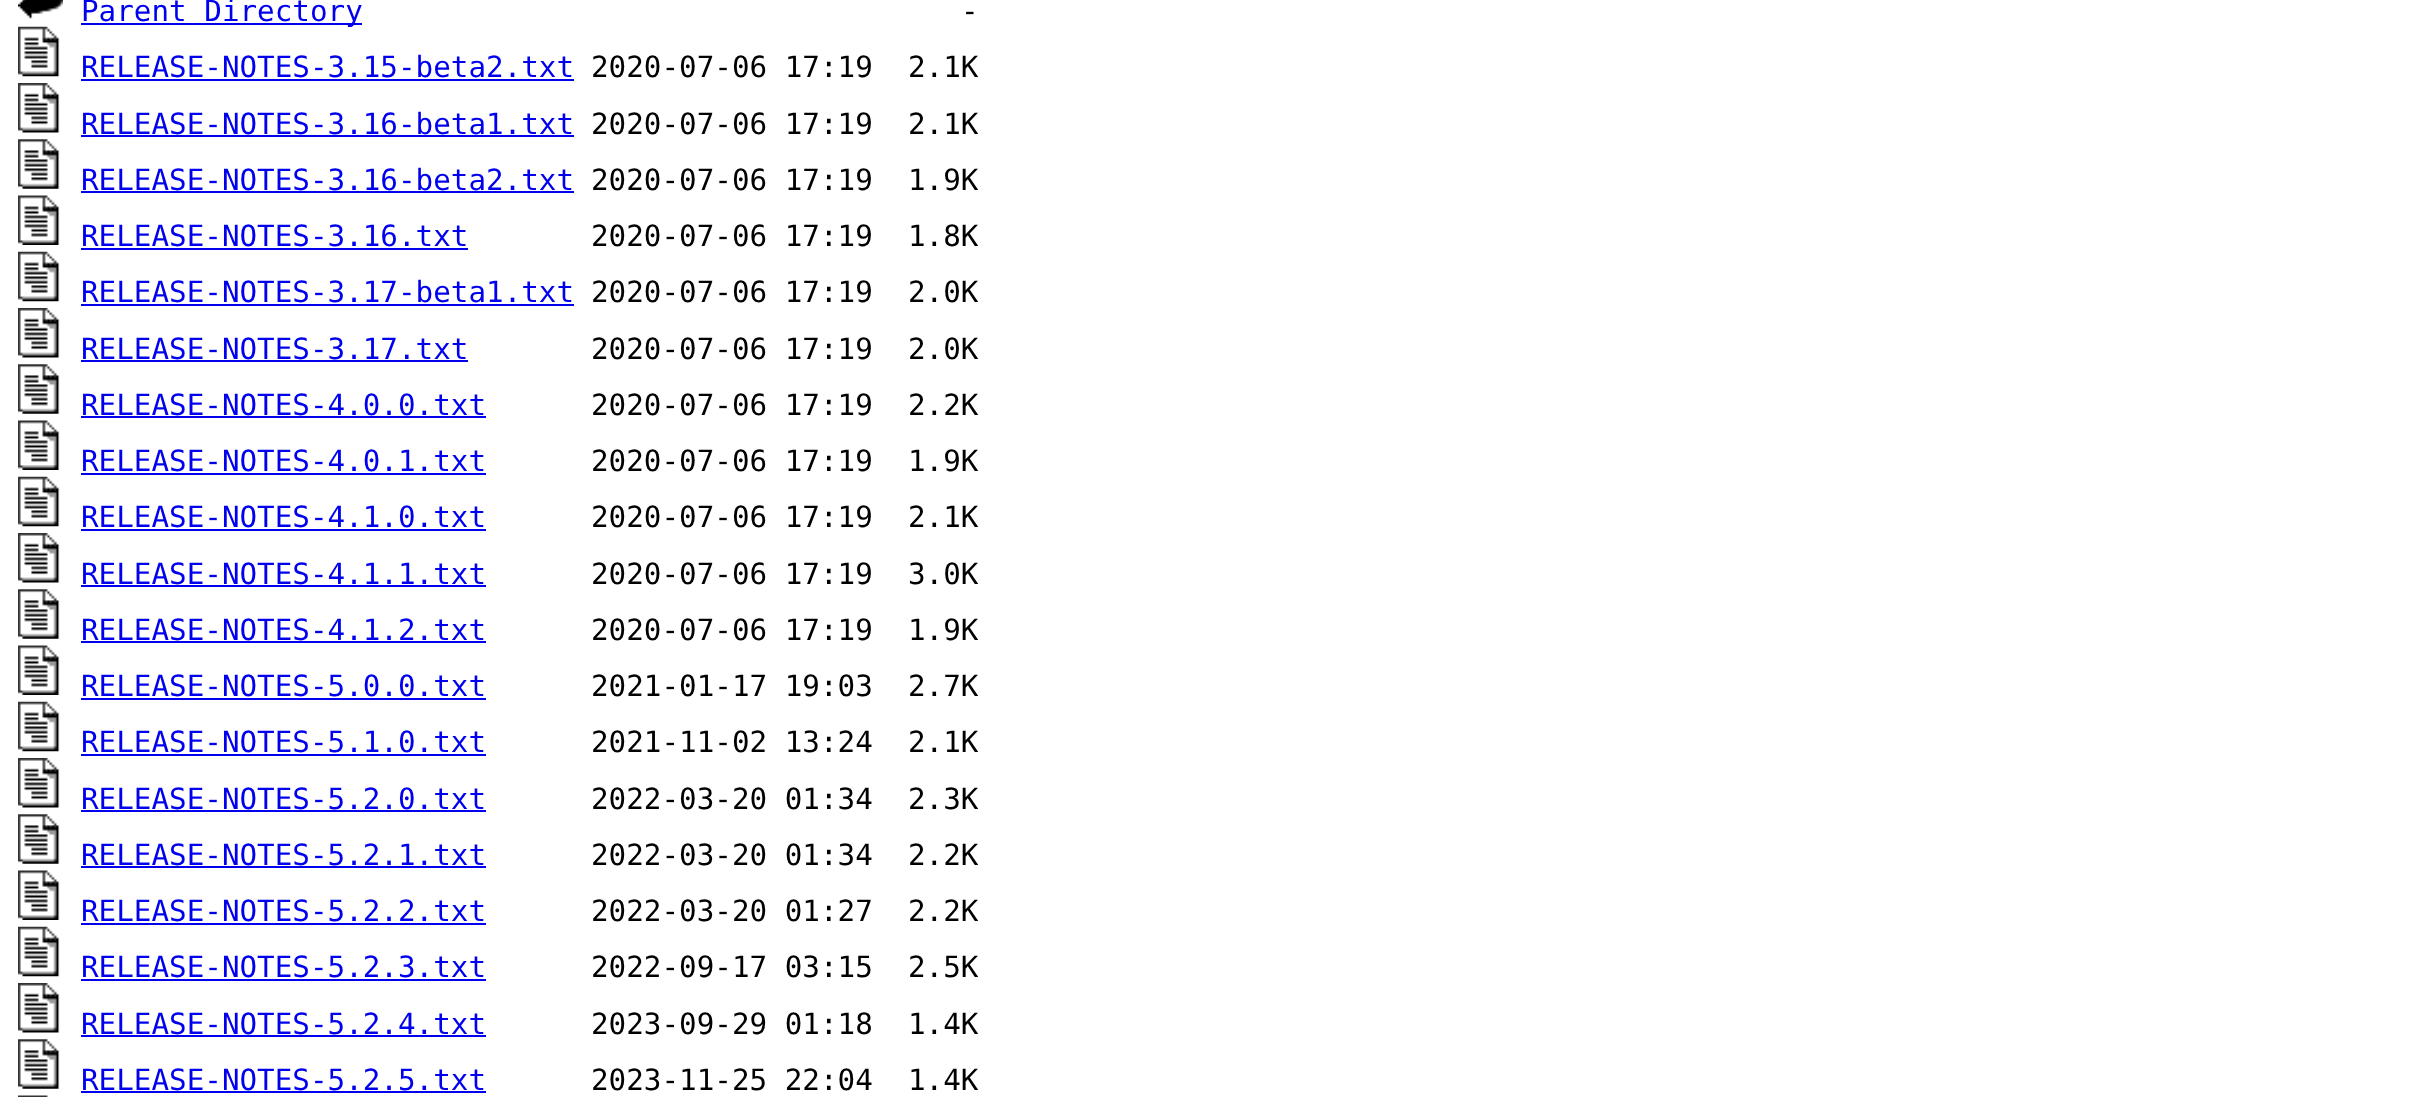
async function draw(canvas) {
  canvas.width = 2433
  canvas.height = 1097
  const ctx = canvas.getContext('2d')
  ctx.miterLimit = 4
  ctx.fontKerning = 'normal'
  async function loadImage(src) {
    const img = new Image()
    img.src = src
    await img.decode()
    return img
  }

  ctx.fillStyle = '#fff'
  ctx.fillRect(0, 0, 2433, 1097)
  ctx.drawImage(await loadImage('image0.png'), 18, 0, 45, 19)
  ctx.fillStyle = '#00e'
  ctx.fillRect(81, 23, 281, 2)
  ctx.font = '29.25px DejaVu Sans Mono'
  ctx.fillText('Parent Directory', 81, 21)
  ctx.fillStyle = '#000'
  ctx.fillText('-', 961, 21)
  ctx.drawImage(await loadImage('image1.png'), 18, 26, 42, 51)
  ctx.fillStyle = '#00e'
  ctx.fillText('RELEASE-NOTES-3.15-beta2.txt', 81, 77)
  ctx.fillRect(81, 79, 493, 2)
  ctx.fillStyle = '#000'
  ctx.fillText('2020-07-06 17:19  2.1K', 591, 77)
  ctx.drawImage(await loadImage('image2.png'), 18, 83, 42, 50)
  ctx.fillStyle = '#00e'
  ctx.fillText('RELEASE-NOTES-3.16-beta1.txt', 81, 134)
  ctx.fillRect(81, 135, 493, 2)
  ctx.fillStyle = '#000'
  ctx.fillText('2020-07-06 17:19  2.1K', 591, 134)
  ctx.drawImage(await loadImage('image3.png'), 18, 139, 42, 50)
  ctx.fillStyle = '#00e'
  ctx.fillText('RELEASE-NOTES-3.16-beta2.txt', 81, 190)
  ctx.fillRect(81, 191, 493, 2)
  ctx.fillStyle = '#000'
  ctx.fillText('2020-07-06 17:19  1.9K', 591, 190)
  ctx.drawImage(await loadImage('image4.png'), 18, 195, 42, 50)
  ctx.fillStyle = '#00e'
  ctx.fillText('RELEASE-NOTES-3.16.txt', 81, 246)
  ctx.fillRect(81, 248, 387, 2)
  ctx.fillStyle = '#000'
  ctx.fillText('2020-07-06 17:19  1.8K', 591, 246)
  ctx.drawImage(await loadImage('image1.png'), 18, 251, 42, 51)
  ctx.fillStyle = '#00e'
  ctx.fillText('RELEASE-NOTES-3.17-beta1.txt', 81, 302)
  ctx.fillRect(81, 304, 493, 2)
  ctx.fillStyle = '#000'
  ctx.fillText('2020-07-06 17:19  2.0K', 591, 302)
  ctx.drawImage(await loadImage('image5.png'), 18, 308, 42, 50)
  ctx.fillStyle = '#00e'
  ctx.fillText('RELEASE-NOTES-3.17.txt', 81, 359)
  ctx.fillRect(81, 360, 387, 2)
  ctx.fillStyle = '#000'
  ctx.fillText('2020-07-06 17:19  2.0K', 591, 359)
  ctx.drawImage(await loadImage('image3.png'), 18, 364, 42, 50)
  ctx.fillStyle = '#00e'
  ctx.fillText('RELEASE-NOTES-4.0.0.txt', 81, 415)
  ctx.fillRect(81, 416, 405, 2)
  ctx.fillStyle = '#000'
  ctx.fillText('2020-07-06 17:19  2.2K', 591, 415)
  ctx.drawImage(await loadImage('image4.png'), 18, 420, 42, 50)
  ctx.fillStyle = '#00e'
  ctx.fillText('RELEASE-NOTES-4.0.1.txt', 81, 471)
  ctx.fillRect(81, 473, 405, 2)
  ctx.fillStyle = '#000'
  ctx.fillText('2020-07-06 17:19  1.9K', 591, 471)
  ctx.drawImage(await loadImage('image1.png'), 18, 476, 42, 51)
  ctx.fillStyle = '#00e'
  ctx.fillText('RELEASE-NOTES-4.1.0.txt', 81, 527)
  ctx.fillRect(81, 529, 405, 2)
  ctx.fillStyle = '#000'
  ctx.fillText('2020-07-06 17:19  2.1K', 591, 527)
  ctx.drawImage(await loadImage('image6.png'), 18, 533, 42, 50)
  ctx.fillStyle = '#00e'
  ctx.fillText('RELEASE-NOTES-4.1.1.txt', 81, 584)
  ctx.fillRect(81, 585, 405, 2)
  ctx.fillStyle = '#000'
  ctx.fillText('2020-07-06 17:19  3.0K', 591, 584)
  ctx.drawImage(await loadImage('image3.png'), 18, 589, 42, 50)
  ctx.fillStyle = '#00e'
  ctx.fillText('RELEASE-NOTES-4.1.2.txt', 81, 640)
  ctx.fillRect(81, 641, 405, 2)
  ctx.fillStyle = '#000'
  ctx.fillText('2020-07-06 17:19  1.9K', 591, 640)
  ctx.drawImage(await loadImage('image4.png'), 18, 645, 42, 50)
  ctx.fillStyle = '#00e'
  ctx.fillText('RELEASE-NOTES-5.0.0.txt', 81, 696)
  ctx.fillRect(81, 698, 405, 2)
  ctx.fillStyle = '#000'
  ctx.fillText('2021-01-17 19:03  2.7K', 591, 696)
  ctx.drawImage(await loadImage('image1.png'), 18, 701, 42, 51)
  ctx.fillStyle = '#00e'
  ctx.fillText('RELEASE-NOTES-5.1.0.txt', 81, 752)
  ctx.fillRect(81, 754, 405, 2)
  ctx.fillStyle = '#000'
  ctx.fillText('2021-11-02 13:24  2.1K', 591, 752)
  ctx.drawImage(await loadImage('image2.png'), 18, 758, 42, 50)
  ctx.fillStyle = '#00e'
  ctx.fillText('RELEASE-NOTES-5.2.0.txt', 81, 809)
  ctx.fillRect(81, 810, 405, 2)
  ctx.fillStyle = '#000'
  ctx.fillText('2022-03-20 01:34  2.3K', 591, 809)
  ctx.drawImage(await loadImage('image3.png'), 18, 814, 42, 50)
  ctx.fillStyle = '#00e'
  ctx.fillText('RELEASE-NOTES-5.2.1.txt', 81, 865)
  ctx.fillRect(81, 866, 405, 2)
  ctx.fillStyle = '#000'
  ctx.fillText('2022-03-20 01:34  2.2K', 591, 865)
  ctx.drawImage(await loadImage('image7.png'), 18, 870, 42, 50)
  ctx.fillStyle = '#00e'
  ctx.fillText('RELEASE-NOTES-5.2.2.txt', 81, 921)
  ctx.fillRect(81, 923, 405, 2)
  ctx.fillStyle = '#000'
  ctx.fillText('2022-03-20 01:27  2.2K', 591, 921)
  ctx.drawImage(await loadImage('image1.png'), 18, 926, 42, 51)
  ctx.fillStyle = '#00e'
  ctx.fillText('RELEASE-NOTES-5.2.3.txt', 81, 977)
  ctx.fillRect(81, 979, 405, 2)
  ctx.fillStyle = '#000'
  ctx.fillText('2022-09-17 03:15  2.5K', 591, 977)
  ctx.drawImage(await loadImage('image2.png'), 18, 983, 42, 50)
  ctx.fillStyle = '#00e'
  ctx.fillText('RELEASE-NOTES-5.2.4.txt', 81, 1034)
  ctx.fillRect(81, 1035, 405, 2)
  ctx.fillStyle = '#000'
  ctx.fillText('2023-09-29 01:18  1.4K', 591, 1034)
  ctx.drawImage(await loadImage('image3.png'), 18, 1039, 42, 50)
  ctx.fillStyle = '#00e'
  ctx.fillText('RELEASE-NOTES-5.2.5.txt', 81, 1090)
  ctx.fillRect(81, 1091, 405, 2)
  ctx.fillStyle = '#000'
  ctx.fillText('2023-11-25 22:04  1.4K', 591, 1090)
  ctx.drawImage(await loadImage('image8.png'), 18, 1095, 30, 2)
}

draw(document.querySelector('canvas'))
